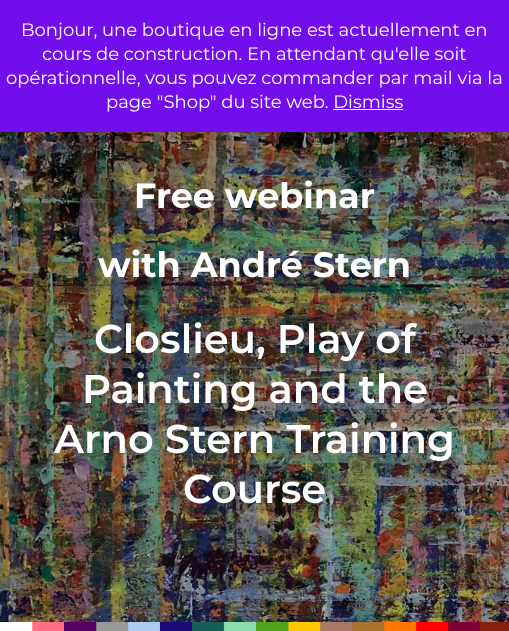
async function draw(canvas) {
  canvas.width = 509
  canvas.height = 631
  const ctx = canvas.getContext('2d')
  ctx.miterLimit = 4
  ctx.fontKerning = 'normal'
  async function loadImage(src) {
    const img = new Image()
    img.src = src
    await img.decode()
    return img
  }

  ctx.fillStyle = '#fff'
  ctx.fillRect(0, 0, 509, 631)
  ctx.drawImage(await loadImage('image0.png'), 0, 132, 509, 490)
  ctx.fillStyle = '#00000033'
  ctx.filter = 'blur(9px)'
  ctx.beginPath()
  ctx.rect(0, 1, 509, 132)
  ctx.fill()
  ctx.filter = 'none'
  ctx.fillStyle = '#720eec'
  ctx.fillRect(0, 0, 509, 132)
  ctx.font = '18px Montserrat'
  ctx.fillStyle = '#fff'
  ctx.fillText('Bonjour, une boutique en ligne est actuellement en', 21, 36)
  ctx.fillText('cours de construction. En attendant qu\'elle soit', 42, 60)
  ctx.fillText('opérationnelle, vous pouvez commander par mail via la', 6, 84)
  ctx.fillText('page "Shop" du site web. Dismiss', 106, 108)
  ctx.fillStyle = '#fcfbfe'
  ctx.fillRect(333, 109, 70, 1)
  ctx.font = 'bold 35px Montserrat'
  ctx.fillStyle = '#fff'
  ctx.fillText('Free webinar', 134, 208)
  ctx.fillText('with André Stern', 98, 277)
  ctx.font = '600 40px Montserrat'
  ctx.fillText('Closlieu, Play of', 94, 353)
  ctx.fillText('Painting and the', 82, 403)
  ctx.fillText('Arno Stern Training', 54, 453)
  ctx.fillText('Course', 183, 503)
  ctx.drawImage(await loadImage('image1.png'), 32, 622, 477, 9)
}

draw(document.querySelector('canvas'))
